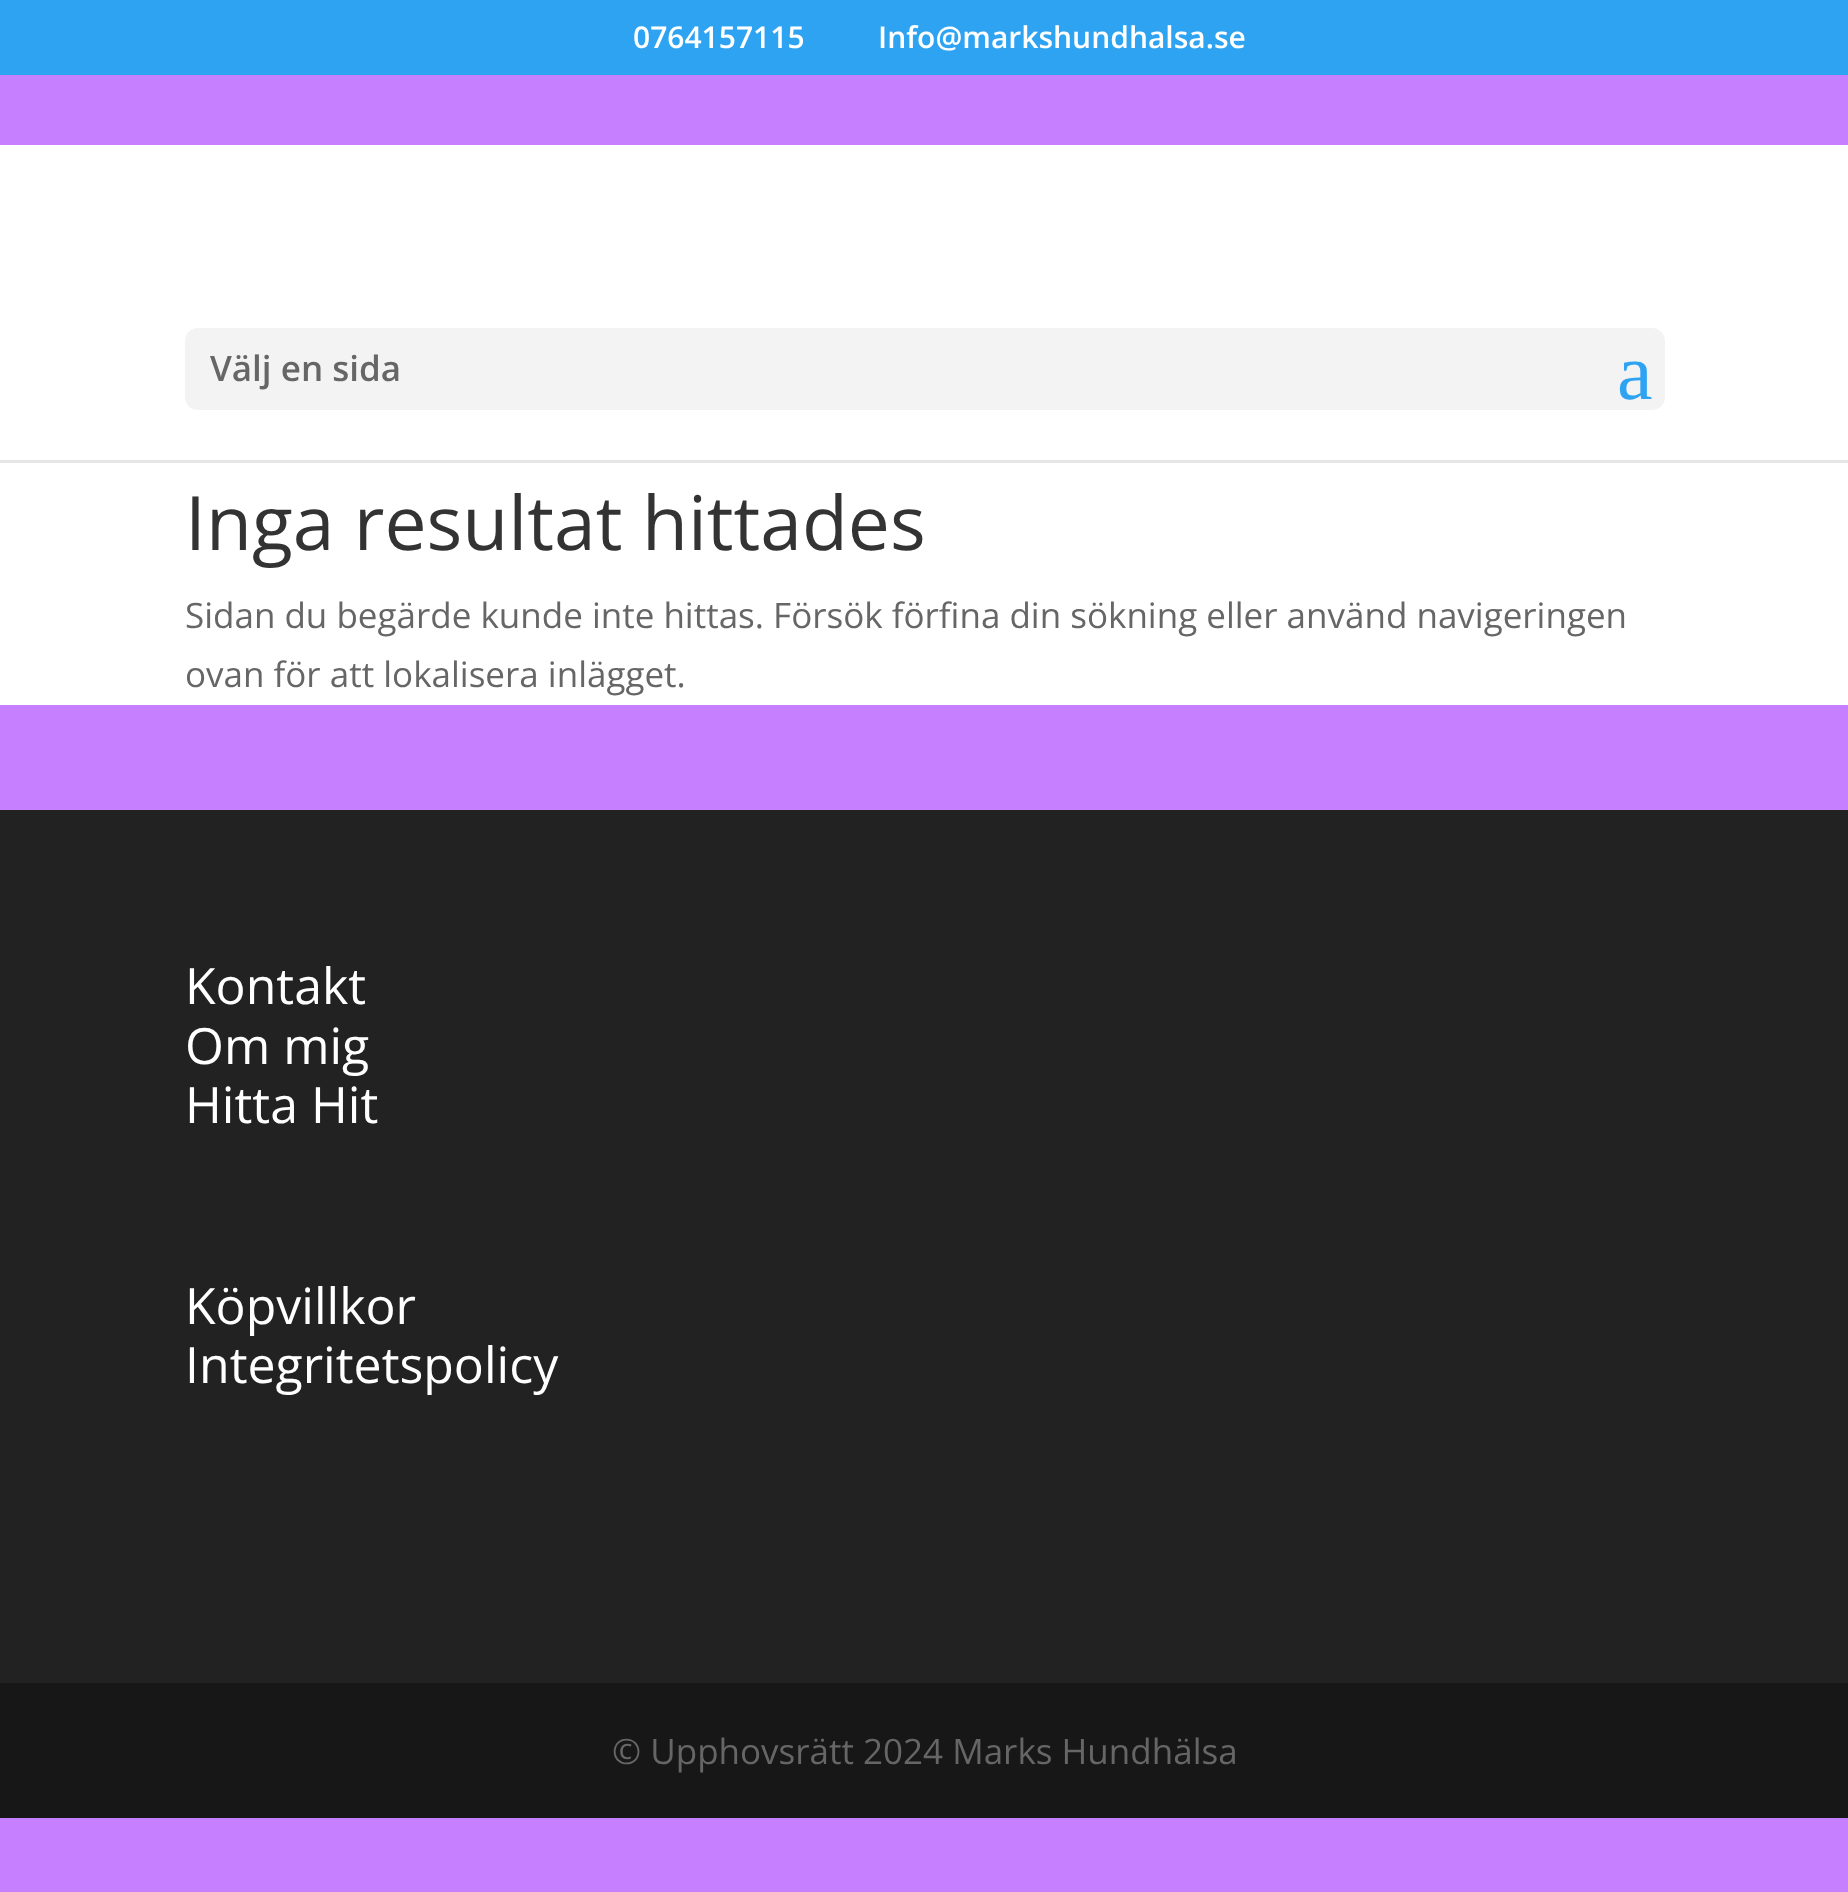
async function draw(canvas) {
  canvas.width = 1848
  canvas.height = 1892
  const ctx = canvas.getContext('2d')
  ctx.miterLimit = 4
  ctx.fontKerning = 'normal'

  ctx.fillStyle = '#c680ff'
  ctx.fillRect(0, 0, 1848, 1892)
  ctx.fillStyle = '#2ea3f2'
  ctx.fillRect(0, 0, 1848, 75)
  ctx.font = '600 30px Open Sans'
  ctx.fillStyle = '#fff'
  ctx.fillText('0764157115', 633, 48)
  ctx.fillText('Info@markshundhalsa.se', 878, 48)
  ctx.fillStyle = '#e6e6e6'
  ctx.fillRect(0, 460, 1848, 3)
  ctx.fillStyle = '#fff'
  ctx.fillRect(0, 145, 1848, 315)
  ctx.fillStyle = '#f3f3f3'
  ctx.beginPath()
  ctx.roundRect(185, 328, 1480, 82, 13)
  ctx.fill()
  ctx.font = '600 35px Open Sans'
  ctx.fillStyle = '#666'
  ctx.fillText('Välj en sida', 210, 381)
  ctx.font = '80px Liberation Serif'
  ctx.fillStyle = '#2ea3f2'
  ctx.fillText('a', 1617, 399)
  ctx.fillStyle = '#fff'
  ctx.fillRect(0, 463, 1848, 242)
  ctx.font = '75px Open Sans'
  ctx.fillStyle = '#333'
  ctx.fillText('Inga resultat hittades', 185, 550)
  ctx.font = '35px Open Sans'
  ctx.fillStyle = '#666'
  ctx.fillText('Sidan du begärde kunde inte hittas. Försök förfina din sökning eller använd navigeringen', 185, 628)
  ctx.fillText('ovan för att lokalisera inlägget.', 185, 687)
  ctx.fillStyle = '#222'
  ctx.fillRect(0, 810, 1848, 873)
  ctx.font = '50px Open Sans'
  ctx.fillStyle = '#fff'
  ctx.fillText('Kontakt', 185, 1004)
  ctx.fillText('Om mig', 185, 1064)
  ctx.fillText('Hitta Hit', 185, 1123)
  ctx.fillText('Köpvillkor', 185, 1324)
  ctx.fillText('Integritetspolicy', 185, 1383)
  ctx.fillStyle = '#171717'
  ctx.fillRect(0, 1683, 1848, 135)
  ctx.font = '35px Open Sans'
  ctx.fillStyle = '#666'
  ctx.fillText('© Upphovsrätt 2024 Marks Hundhälsa', 612, 1764)
}

draw(document.querySelector('canvas'))
